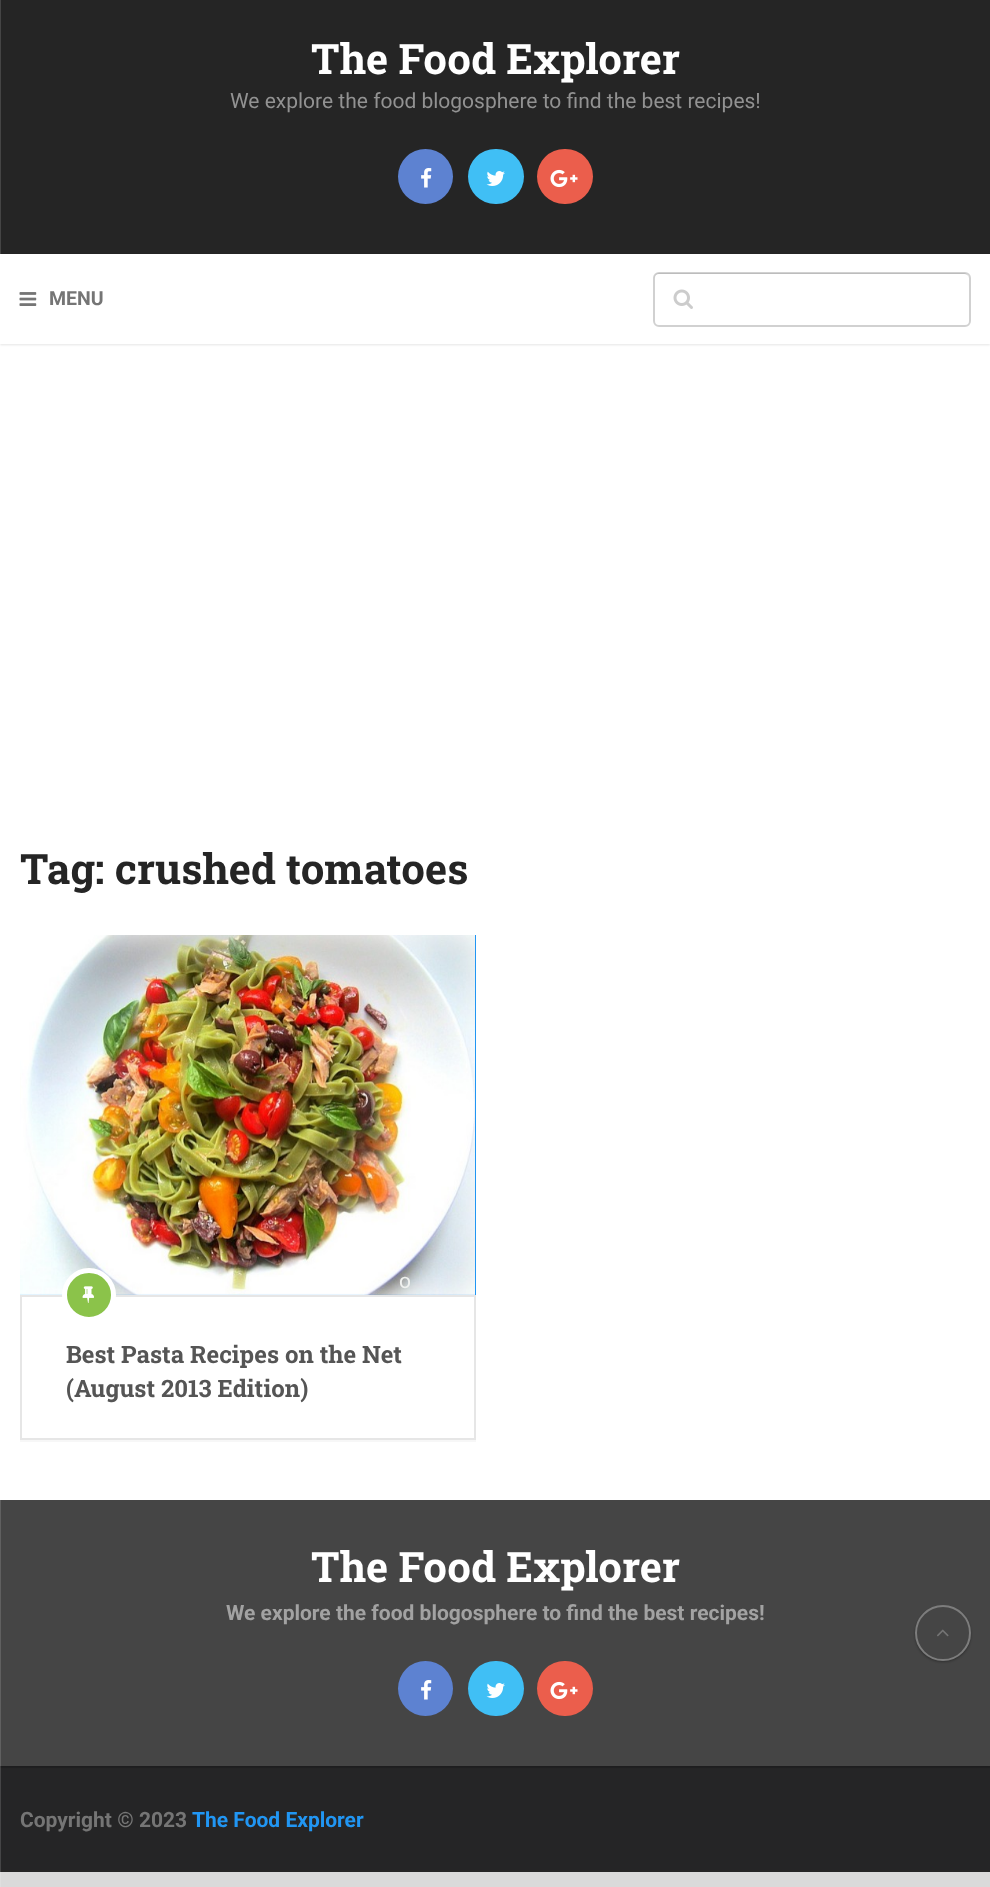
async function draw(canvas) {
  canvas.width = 990
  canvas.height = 1887
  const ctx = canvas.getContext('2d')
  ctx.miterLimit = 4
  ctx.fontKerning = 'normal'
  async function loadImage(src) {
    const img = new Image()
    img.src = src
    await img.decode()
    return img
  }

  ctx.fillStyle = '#dadada'
  ctx.fillRect(0, 0, 990, 1887)
  ctx.fillStyle = '#252525'
  ctx.fillRect(0, 0, 990, 254)
  ctx.font = 'bold 42px Roboto Slab'
  ctx.fillStyle = '#fff'
  ctx.fillText('The Food Explorer', 311, 74)
  ctx.font = '21px Roboto'
  ctx.fillStyle = '#929292'
  ctx.fillText('We explore the food blogosphere to find the best recipes!', 230, 108)
  ctx.fillStyle = '#5d82d1'
  ctx.beginPath()
  ctx.arc(425.5, 176.5, 27.5, 0, 2 * Math.PI)
  ctx.fill()
  ctx.drawImage(await loadImage('image0.png'), 421, 168, 11, 20)
  ctx.fillStyle = '#40bff5'
  ctx.beginPath()
  ctx.roundRect(468, 149, 56, 55, 27.5)
  ctx.fill()
  ctx.drawImage(await loadImage('image1.png'), 486, 171, 19, 15)
  ctx.fillStyle = '#eb5e4c'
  ctx.beginPath()
  ctx.roundRect(537, 149, 56, 55, 27.5)
  ctx.fill()
  ctx.drawImage(await loadImage('image2.png'), 550, 169, 28, 19)
  ctx.fillStyle = '#fff'
  ctx.fillRect(0, 344, 990, 1156)
  ctx.fillStyle = '#0000001a'
  ctx.filter = 'blur(1px)'
  ctx.beginPath()
  ctx.rect(0, 255, 990, 90)
  ctx.fill()
  ctx.filter = 'none'
  ctx.fillStyle = '#fff'
  ctx.fillRect(0, 254, 990, 90)
  ctx.fillStyle = '#252526'
  ctx.fillRect(0, 1768, 990, 104)
  ctx.fillStyle = '#212122'
  ctx.fillRect(0, 1766, 990, 2)
  ctx.fillStyle = '#00000026'
  ctx.filter = 'blur(1px)'
  ctx.beginPath()
  ctx.rect(0, 1502, 990, 265)
  ctx.fill()
  ctx.filter = 'none'
  ctx.fillStyle = '#454545'
  ctx.fillRect(0, 1500, 990, 266)
  ctx.fillStyle = '#ffffff26'
  ctx.fillRect(0, 0, 1, 1887)
  ctx.drawImage(await loadImage('image3.png'), 19, 292, 18, 14)
  ctx.font = 'bold 19.5px Roboto'
  ctx.fillStyle = '#757575'
  ctx.fillText('MENU', 49, 305)
  ctx.fillStyle = '#e6e6e6'
  ctx.beginPath()
  ctx.moveTo(658, 274)
  ctx.lineTo(964, 274)
  ctx.bezierCurveTo(967, 274, 969, 277, 969, 279)
  ctx.bezierCurveTo(969, 276, 967, 273, 964, 273)
  ctx.lineTo(659, 273)
  ctx.bezierCurveTo(656, 273, 654, 276, 654, 279)
  ctx.bezierCurveTo(654, 277, 656, 274, 658, 274)
  ctx.closePath()
  ctx.fill()
  ctx.beginPath()
  ctx.roundRect(654, 273, 316, 53, 5)
  ctx.strokeStyle = '#0000002e'
  ctx.lineWidth = 2
  ctx.stroke()
  ctx.drawImage(await loadImage('image4.png'), 673, 289, 20, 20)
  ctx.font = 'bold 42px Roboto Slab'
  ctx.fillStyle = '#252525'
  ctx.fillText('Tag: crushed tomatoes', 20, 884)
  ctx.fillStyle = '#f7f7f7'
  ctx.beginPath()
  ctx.moveTo(20, 1440)
  ctx.lineTo(20, 1442)
  ctx.lineTo(476, 1442)
  ctx.lineTo(476, 936)
  ctx.lineTo(476, 1440)
  ctx.closePath()
  ctx.fill()
  ctx.fillStyle = '#2196f3'
  ctx.fillRect(20, 935, 456, 360)
  ctx.drawImage(await loadImage('image6.png'), 20, 935, 455, 360)
  ctx.strokeStyle = '#e6e6e6'
  ctx.strokeRect(21, 1296, 454, 143)
  ctx.fillStyle = '#8bc34a'
  ctx.beginPath()
  ctx.arc(89, 1295, 24.5, 0, 2 * Math.PI)
  ctx.fill()
  ctx.strokeStyle = '#fff'
  ctx.lineWidth = 5
  ctx.stroke()
  ctx.drawImage(await loadImage('image5.png'), 82, 1286, 12, 17)
  ctx.font = '21px Roboto'
  ctx.fillStyle = '#f0f2f0'
  ctx.fillText('o', 399, 1288)
  ctx.font = 'bold 24px Roboto Slab'
  ctx.fillStyle = '#555'
  ctx.fillText('Best Pasta Recipes on the Net', 66, 1363)
  ctx.fillText('(August 2013 Edition)', 66, 1397)
  ctx.font = 'bold 42px Roboto Slab'
  ctx.fillStyle = '#fff'
  ctx.fillText('The Food Explorer', 311, 1582)
  ctx.font = 'bold 21px Roboto'
  ctx.fillStyle = '#a2a2a2'
  ctx.fillText('We explore the food blogosphere to find the best recipes!', 226, 1620)
  ctx.fillStyle = '#0000004d'
  ctx.filter = 'blur(1px)'
  ctx.beginPath()
  ctx.roundRect(915, 1607, 56, 55, 27.5)
  ctx.fill()
  ctx.filter = 'none'
  ctx.fillStyle = '#454545'
  ctx.beginPath()
  ctx.arc(943, 1633, 28, 0, 2 * Math.PI)
  ctx.fill()
  ctx.beginPath()
  ctx.arc(943, 1633, 27, 0, 2 * Math.PI)
  ctx.strokeStyle = '#ffffff4d'
  ctx.lineWidth = 2
  ctx.stroke()
  ctx.drawImage(await loadImage('image7.png'), 937, 1629, 12, 8)
  ctx.fillStyle = '#5d82d1'
  ctx.beginPath()
  ctx.arc(425.5, 1688.5, 27.5, 0, 2 * Math.PI)
  ctx.fill()
  ctx.drawImage(await loadImage('image0.png'), 421, 1680, 11, 20)
  ctx.fillStyle = '#40bff5'
  ctx.beginPath()
  ctx.roundRect(468, 1661, 56, 55, 27.5)
  ctx.fill()
  ctx.drawImage(await loadImage('image1.png'), 486, 1683, 19, 15)
  ctx.fillStyle = '#eb5e4c'
  ctx.beginPath()
  ctx.roundRect(537, 1661, 56, 55, 27.5)
  ctx.fill()
  ctx.drawImage(await loadImage('image2.png'), 550, 1681, 28, 19)
  ctx.fillStyle = '#757575'
  ctx.fillText('Copyright © 2023', 20, 1827)
  ctx.fillStyle = '#2196f3'
  ctx.fillText('The Food Explorer', 192, 1827)
}

draw(document.querySelector('canvas'))
